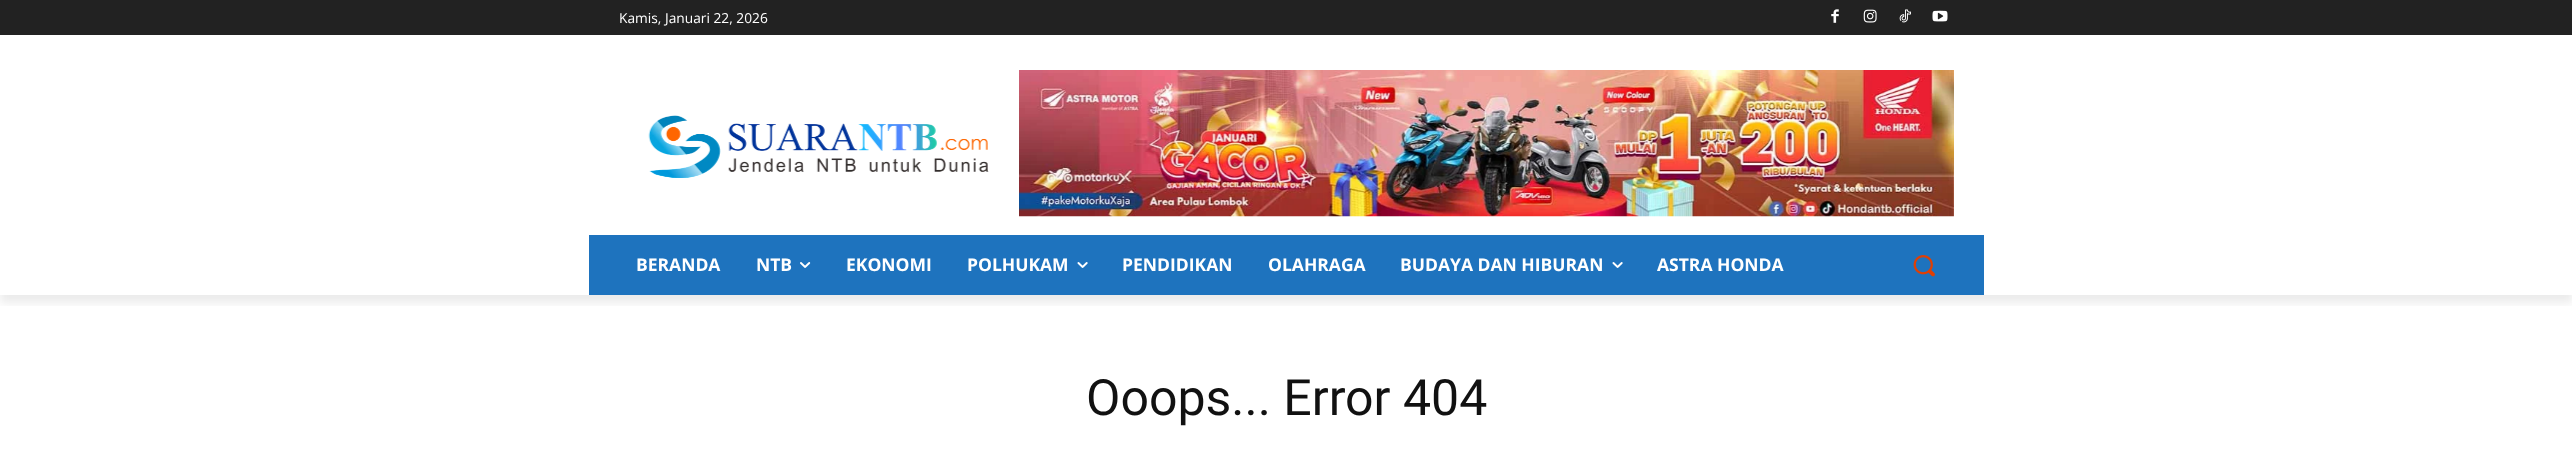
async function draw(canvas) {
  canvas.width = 2572
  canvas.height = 473
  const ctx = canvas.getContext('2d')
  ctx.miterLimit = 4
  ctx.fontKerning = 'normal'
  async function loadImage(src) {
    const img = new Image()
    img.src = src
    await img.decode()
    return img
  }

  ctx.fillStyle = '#fff'
  ctx.fillRect(0, 0, 2572, 473)
  ctx.fillStyle = '#222'
  ctx.fillRect(0, 0, 2572, 35)
  ctx.drawImage(await loadImage('image0.png'), 1831, 9, 8, 14)
  ctx.drawImage(await loadImage('image1.png'), 1863, 9, 14, 14)
  ctx.drawImage(await loadImage('image2.png'), 1899, 9, 12, 14)
  ctx.drawImage(await loadImage('image3.png'), 1932, 10, 16, 12)
  ctx.drawImage(await loadImage('image4.png'), 648, 115, 341, 63)
  ctx.drawImage(await loadImage('image5.png'), 1019, 70, 935, 147)
  ctx.fillStyle = '#1e73be'
  ctx.fillRect(589, 235, 1395, 60)
  ctx.save()
  ctx.beginPath()
  ctx.rect(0, 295, 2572, 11)
  ctx.clip()
  ctx.fillStyle = '#00000014'
  ctx.filter = 'blur(5px)'
  ctx.beginPath()
  ctx.rect(0, 8, 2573, 295)
  ctx.fill()
  ctx.filter = 'none'
  ctx.restore()
  ctx.font = '13.75px Open Sans'
  ctx.fillStyle = '#fff'
  ctx.fillText('Kamis, Januari 22, 2026', 619, 23)
  ctx.font = 'bold 17.5px Open Sans'
  ctx.fillText('BERANDA', 636, 271)
  ctx.fillText('NTB', 756, 271)
  ctx.drawImage(await loadImage('image6.png'), 800, 262, 11, 6)
  ctx.fillText('EKONOMI', 846, 271)
  ctx.fillText('POLHUKAM', 967, 271)
  ctx.drawImage(await loadImage('image7.png'), 1077, 262, 11, 6)
  ctx.fillText('PENDIDIKAN', 1122, 271)
  ctx.fillText('OLAHRAGA', 1268, 271)
  ctx.fillText('BUDAYA DAN HIBURAN', 1400, 271)
  ctx.drawImage(await loadImage('image7.png'), 1612, 262, 11, 6)
  ctx.fillText('ASTRA HONDA', 1657, 271)
  ctx.drawImage(await loadImage('image8.png'), 1913, 255, 22, 22)
  ctx.font = '50px Roboto'
  ctx.fillStyle = '#111'
  ctx.fillText('Ooops... Error 404', 1086, 415)
}

draw(document.querySelector('canvas'))
